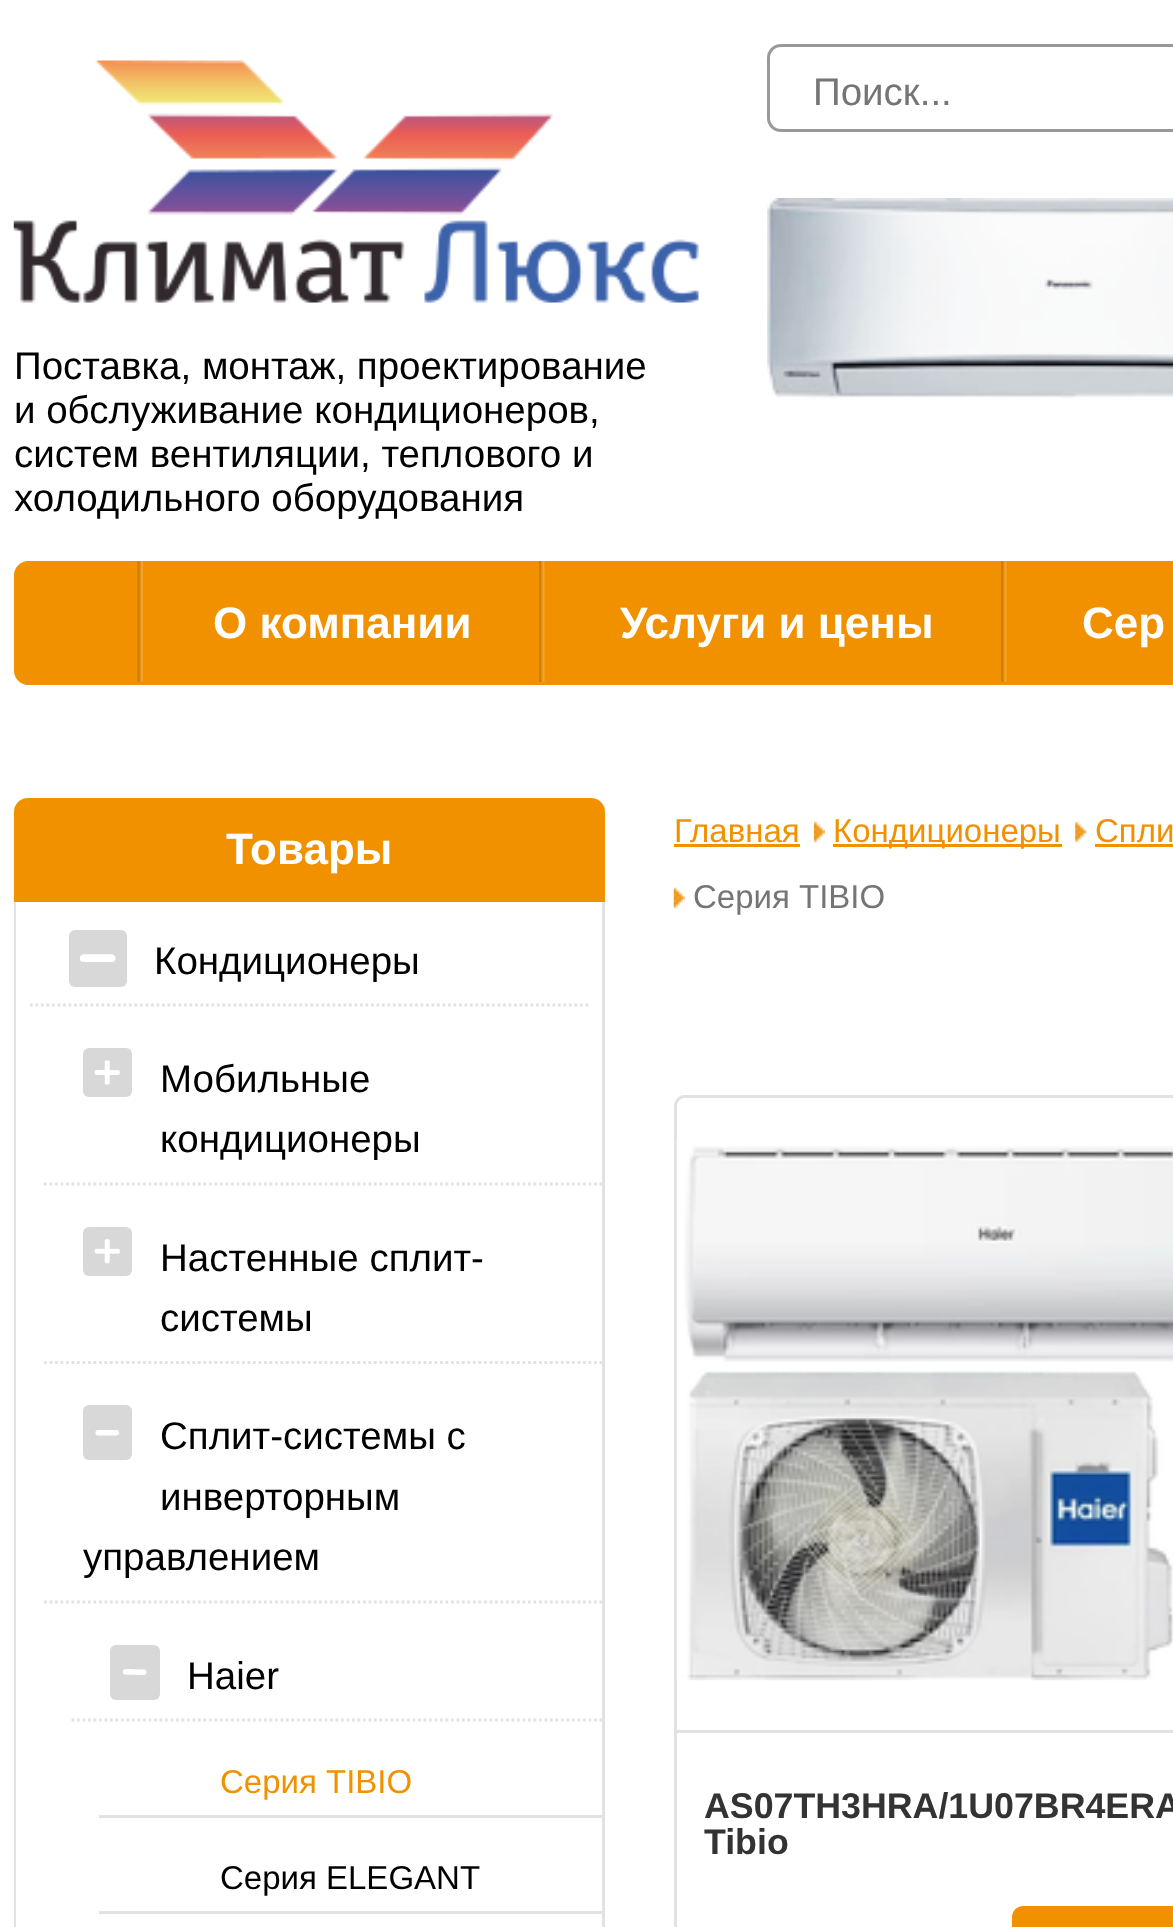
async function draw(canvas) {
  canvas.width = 1173
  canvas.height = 1927
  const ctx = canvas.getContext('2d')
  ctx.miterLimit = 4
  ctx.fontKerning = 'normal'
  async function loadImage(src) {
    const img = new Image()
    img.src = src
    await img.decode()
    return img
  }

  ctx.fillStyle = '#fff'
  ctx.fillRect(0, 0, 1173, 1927)
  ctx.beginPath()
  ctx.roundRect(768.5, 45.5, 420, 85, 12.5)
  ctx.strokeStyle = '#999'
  ctx.lineWidth = 3
  ctx.stroke()
  ctx.font = '38.5px Liberation Sans'
  ctx.fillStyle = '#757575'
  ctx.fillText('Поиск...', 813, 105)
  ctx.drawImage(await loadImage('image0.png'), 767, 198, 406, 201)
  ctx.drawImage(await loadImage('image1.png'), 13, 60, 686, 243)
  ctx.fillStyle = '#000'
  ctx.fillText('Поставка, монтаж, проектирование', 14, 379)
  ctx.fillText('и обслуживание кондиционеров,', 14, 423)
  ctx.fillText('систем вентиляции, теплового и', 14, 467)
  ctx.fillText('холодильного оборудования', 14, 511)
  ctx.fillStyle = '#f29100'
  ctx.beginPath()
  ctx.moveTo(28, 561)
  ctx.lineTo(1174, 561)
  ctx.lineTo(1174, 685)
  ctx.lineTo(28, 685)
  ctx.bezierCurveTo(20.5, 685, 14, 678.5, 14, 671)
  ctx.lineTo(14, 575)
  ctx.bezierCurveTo(14, 567.5, 20.5, 561, 28, 561)
  ctx.closePath()
  ctx.fill()
  ctx.drawImage(await loadImage('image2.png'), 137, 561, 6, 121)
  ctx.drawImage(await loadImage('image3.png'), 539, 561, 6, 121)
  ctx.font = 'bold 44px Liberation Sans'
  ctx.fillStyle = '#fff'
  ctx.fillText('О компании', 213, 638)
  ctx.drawImage(await loadImage('image3.png'), 1001, 561, 6, 121)
  ctx.fillText('Услуги и цены', 620, 638)
  ctx.fillText('Сер', 1082, 638)
  ctx.fillStyle = '#f29100'
  ctx.beginPath()
  ctx.roundRect(14, 798, 591, 104, [14, 14, 0, 0])
  ctx.fill()
  ctx.fillStyle = '#fff'
  ctx.fillText('Товары', 226, 864)
  ctx.fillStyle = '#e2e2e2'
  ctx.beginPath()
  ctx.moveTo(14, 902)
  ctx.lineTo(605, 902)
  ctx.lineTo(605, 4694)
  ctx.bezierCurveTo(605, 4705, 596, 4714, 586, 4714)
  ctx.lineTo(33, 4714)
  ctx.bezierCurveTo(22, 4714, 14, 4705, 14, 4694)
  ctx.closePath()
  ctx.moveTo(16, 902)
  ctx.lineTo(602, 902)
  ctx.lineTo(602, 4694)
  ctx.bezierCurveTo(602, 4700, 595, 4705, 586, 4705)
  ctx.lineTo(33, 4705)
  ctx.bezierCurveTo(24, 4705, 16, 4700, 16, 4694)
  ctx.closePath()
  ctx.fill('evenodd')
  ctx.beginPath()
  ctx.moveTo(30, 1005)
  ctx.lineTo(588.5, 1005)
  ctx.strokeStyle = '#e2e2e2'
  ctx.lineWidth = 2.8
  ctx.setLineDash([2.75, 2.75])
  ctx.stroke()
  ctx.fillStyle = '#d8d8d8'
  ctx.beginPath()
  ctx.roundRect(69, 930, 58, 57, 6)
  ctx.fill()
  ctx.drawImage(await loadImage('image4.png'), 80, 954, 36, 8)
  ctx.font = '38.5px Liberation Sans'
  ctx.fillStyle = '#000'
  ctx.fillText('Кондиционеры', 154, 974)
  ctx.beginPath()
  ctx.moveTo(44, 1184)
  ctx.lineTo(602, 1184)
  ctx.stroke()
  ctx.fillStyle = '#d8d8d8'
  ctx.beginPath()
  ctx.roundRect(83, 1048, 49, 49, 6)
  ctx.fill()
  ctx.drawImage(await loadImage('image5.png'), 94, 1060, 26, 25)
  ctx.fillStyle = '#000'
  ctx.fillText('Мобильные', 160, 1092)
  ctx.fillText('кондиционеры', 160, 1152)
  ctx.beginPath()
  ctx.moveTo(44, 1362.5)
  ctx.lineTo(602, 1362.5)
  ctx.stroke()
  ctx.fillStyle = '#d8d8d8'
  ctx.beginPath()
  ctx.roundRect(83, 1227, 49, 49, 6)
  ctx.fill()
  ctx.drawImage(await loadImage('image6.png'), 94, 1239, 26, 25)
  ctx.fillStyle = '#000'
  ctx.fillText('Настенные сплит-', 160, 1271)
  ctx.fillText('системы', 160, 1331)
  ctx.beginPath()
  ctx.moveTo(44, 1602)
  ctx.lineTo(602, 1602)
  ctx.stroke()
  ctx.fillStyle = '#d8d8d8'
  ctx.beginPath()
  ctx.roundRect(83, 1405, 49, 55, 6)
  ctx.fill()
  ctx.fillStyle = '#fff'
  ctx.beginPath()
  ctx.moveTo(98, 1430)
  ctx.lineTo(117.5, 1430)
  ctx.bezierCurveTo(120, 1431.5, 119.5, 1435.5, 116.5, 1435.5)
  ctx.lineTo(97, 1435.5)
  ctx.bezierCurveTo(94.5, 1434, 95, 1430, 98, 1430)
  ctx.closePath()
  ctx.fill('evenodd')
  ctx.fillStyle = '#000'
  ctx.fillText('Сплит-системы с', 160, 1449)
  ctx.fillText('инверторным', 160, 1510)
  ctx.fillText('управлением', 83, 1570)
  ctx.beginPath()
  ctx.moveTo(71.5, 1720)
  ctx.lineTo(602, 1720)
  ctx.stroke()
  ctx.fillStyle = '#d8d8d8'
  ctx.beginPath()
  ctx.roundRect(110, 1645, 50, 55, 6)
  ctx.fill()
  ctx.fillStyle = '#fff'
  ctx.beginPath()
  ctx.moveTo(125.5, 1669)
  ctx.lineTo(145, 1669.5)
  ctx.bezierCurveTo(147.5, 1670.5, 147, 1674.5, 144, 1675)
  ctx.lineTo(124.5, 1674.5)
  ctx.bezierCurveTo(122, 1673.5, 122.5, 1669, 125.5, 1669)
  ctx.closePath()
  ctx.fill('evenodd')
  ctx.fillStyle = '#000'
  ctx.fillText('Haier', 187, 1689)
  ctx.fillStyle = '#e2e2e2'
  ctx.fillRect(99, 1815, 503, 3)
  ctx.font = '33px Liberation Sans'
  ctx.fillStyle = '#f29100'
  ctx.fillText('Серия TIBIO', 220, 1793)
  ctx.fillStyle = '#e2e2e2'
  ctx.fillRect(99, 1911, 503, 3)
  ctx.fillStyle = '#000'
  ctx.fillText('Серия ELEGANT', 220, 1889)
  ctx.fillStyle = '#f29100'
  ctx.fillText('Главная', 674, 842)
  ctx.fillRect(674, 844, 126, 3)
  ctx.drawImage(await loadImage('image7.png'), 814, 821, 11, 22)
  ctx.fillRect(833, 844, 229, 3)
  ctx.fillText('Кондиционеры', 833, 842)
  ctx.drawImage(await loadImage('image8.png'), 1075, 821, 12, 22)
  ctx.fillText('Спли', 1095, 842)
  ctx.fillRect(1095, 844, 78, 3)
  ctx.drawImage(await loadImage('image9.png'), 673, 887, 12, 22)
  ctx.fillStyle = '#757575'
  ctx.fillText('Серия TIBIO', 693, 908)
  ctx.beginPath()
  ctx.roundRect(675.5, 1096.5, 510, 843, 9.5)
  ctx.lineWidth = 3
  ctx.setLineDash([])
  ctx.stroke()
  ctx.fillStyle = '#e2e2e2'
  ctx.fillRect(677, 1730, 496, 3)
  ctx.drawImage(await loadImage('image10.png'), 676, 1139, 497, 542)
  ctx.font = 'bold 35.75px Liberation Sans'
  ctx.fillStyle = '#333'
  ctx.fillText('AS07TH3HRA/1U07BR4ERA', 704, 1818)
  ctx.fillText('Tibio', 704, 1854)
  ctx.fillStyle = '#f29100'
  ctx.beginPath()
  ctx.moveTo(1023, 1906)
  ctx.lineTo(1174, 1906)
  ctx.lineTo(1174, 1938)
  ctx.lineTo(1023, 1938)
  ctx.bezierCurveTo(1017, 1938, 1012, 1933, 1012, 1927)
  ctx.lineTo(1012, 1917)
  ctx.bezierCurveTo(1012, 1911, 1017, 1906, 1023, 1906)
  ctx.closePath()
  ctx.fill()
}

draw(document.querySelector('canvas'))
